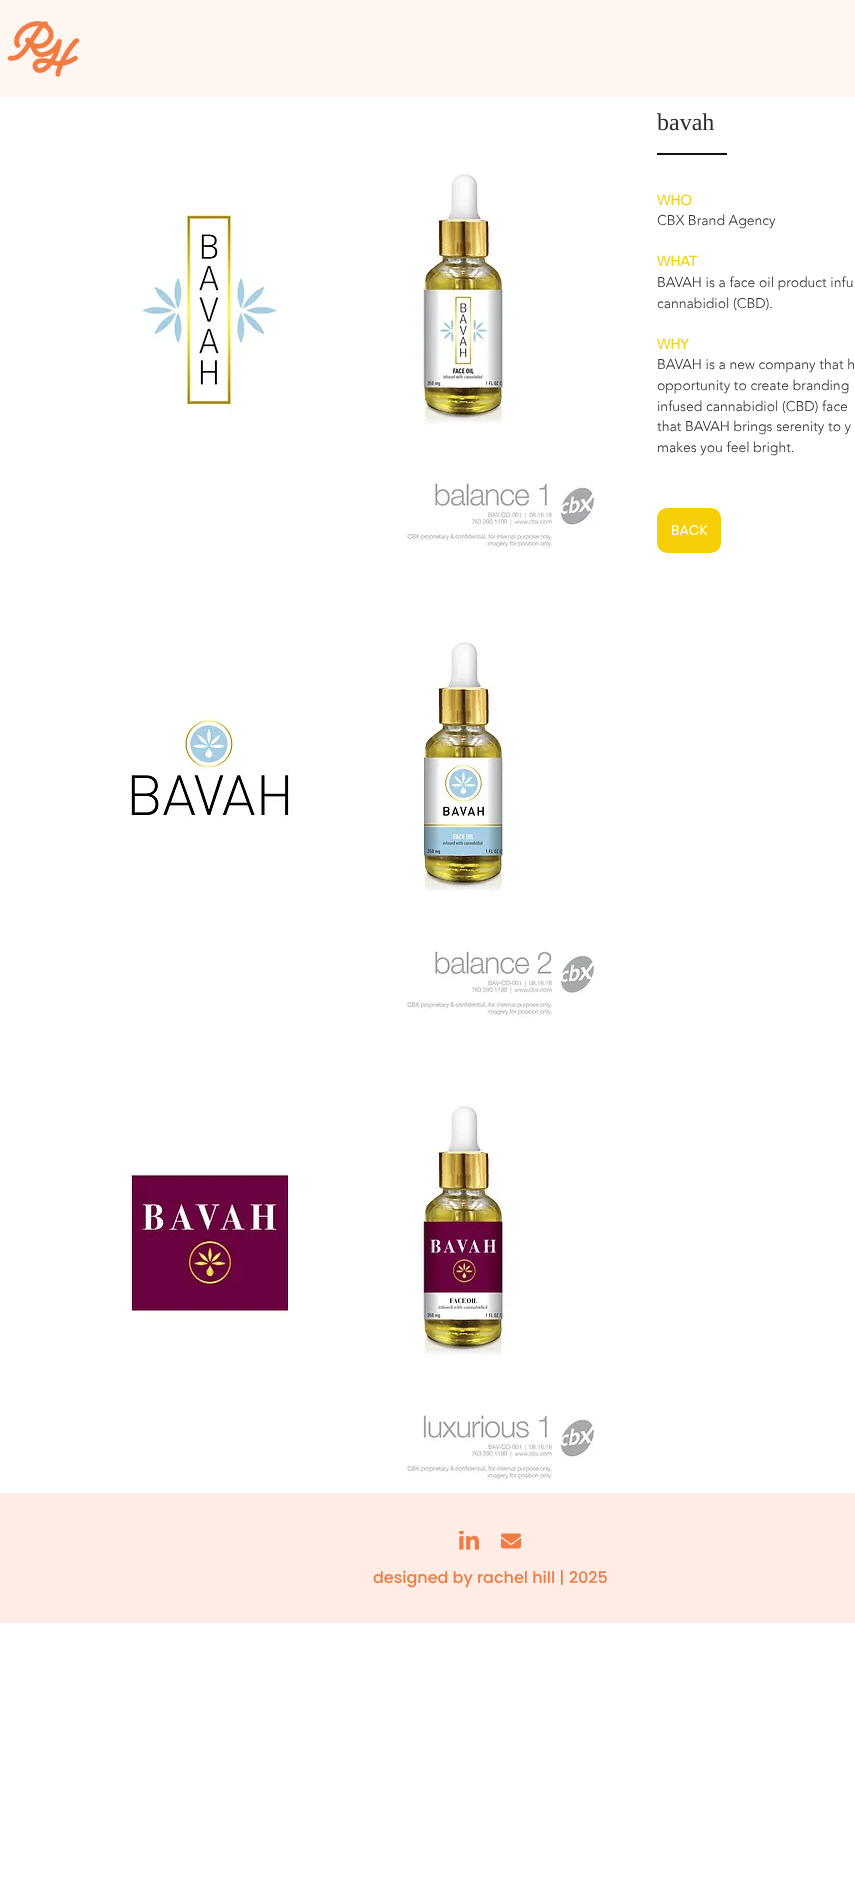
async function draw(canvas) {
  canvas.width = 855
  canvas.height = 1892
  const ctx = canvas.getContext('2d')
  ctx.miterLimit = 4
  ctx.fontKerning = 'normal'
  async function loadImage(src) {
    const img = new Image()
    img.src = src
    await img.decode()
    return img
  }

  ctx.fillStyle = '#fff'
  ctx.fillRect(0, 0, 855, 1892)
  ctx.fillStyle = '#fff6f2'
  ctx.fillRect(0, 0, 855, 97)
  ctx.drawImage(await loadImage('image0.png'), 7, 21, 73, 56)
  ctx.drawImage(await loadImage('image1.png'), 140, 173, 456, 376)
  ctx.font = '24px Liberation Serif'
  ctx.fillStyle = '#2e2e2e'
  ctx.fillText('bavah', 657, 130)
  ctx.fillStyle = '#121212'
  ctx.fillRect(657, 153, 70, 2)
  ctx.font = 'bold 14px "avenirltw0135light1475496"'
  ctx.fillStyle = '#f7cf07'
  ctx.fillText('WHO', 657, 205)
  ctx.font = '300 14px "avenirltw0135light1475496"'
  ctx.fillStyle = '#2e2e2e'
  ctx.fillText('CBX Brand Agency', 657, 225)
  ctx.font = 'bold 14px "avenirltw0135light1475496"'
  ctx.fillStyle = '#f7cf07'
  ctx.fillText('WHAT', 657, 266)
  ctx.font = '300 14px "avenirltw0135light1475496"'
  ctx.fillStyle = '#2e2e2e'
  ctx.fillText('BAVAH is a face oil product infu', 657, 287)
  ctx.fillText('cannabidiol (CBD).', 657, 308)
  ctx.font = 'bold 14px "avenirltw0135light1475496"'
  ctx.fillStyle = '#f7cf07'
  ctx.fillText('WHY', 657, 349)
  ctx.font = '300 14px "avenirltw0135light1475496"'
  ctx.fillStyle = '#2e2e2e'
  ctx.fillText('BAVAH is a new company that h', 657, 369)
  ctx.fillText('opportunity to create branding', 657, 390)
  ctx.fillText('infused cannabidiol (CBD) face', 657, 411)
  ctx.fillText('that BAVAH brings serenity to y', 657, 431)
  ctx.fillText('makes you feel bright.', 657, 452)
  ctx.fillStyle = '#f7cf07'
  ctx.beginPath()
  ctx.roundRect(657, 508, 64, 45, 10)
  ctx.fill()
  ctx.font = '14px Poppins'
  ctx.fillStyle = '#fff'
  ctx.fillText('BACK', 671, 535)
  ctx.drawImage(await loadImage('image2.png'), 128, 642, 468, 375)
  ctx.drawImage(await loadImage('image3.png'), 130, 1105, 466, 376)
  ctx.fillStyle = '#ffede5'
  ctx.fillRect(0, 1493, 855, 130)
  ctx.drawImage(await loadImage('image4.png'), 459, 1531, 20, 19)
  ctx.drawImage(await loadImage('image5.png'), 501, 1533, 20, 16)
  ctx.font = '500 16px Poppins'
  ctx.fillStyle = '#f07c44'
  ctx.fillText('designed by rachel hill | 2025', 373, 1583)
}

draw(document.querySelector('canvas'))
